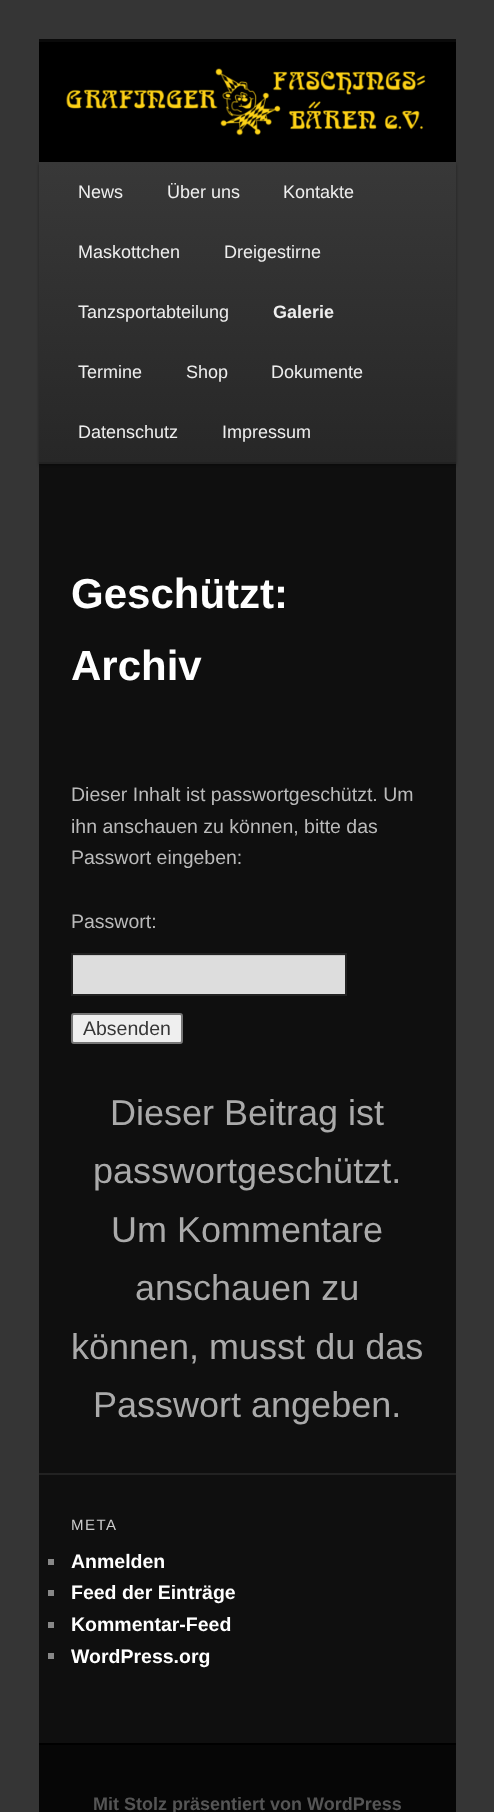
async function draw(canvas) {
  canvas.width = 494
  canvas.height = 1812
  const ctx = canvas.getContext('2d')
  ctx.miterLimit = 4
  ctx.fontKerning = 'normal'
  async function loadImage(src) {
    const img = new Image()
    img.src = src
    await img.decode()
    return img
  }
  let gradient

  ctx.fillStyle = '#353535'
  ctx.fillRect(0, 0, 494, 1812)
  ctx.fillStyle = '#0f0f0f'
  ctx.fillRect(39, 464, 417, 1279)
  ctx.fillStyle = '#0a0a0a'
  ctx.fillRect(39, 39, 417, 3)
  ctx.fillStyle = '#00000066'
  ctx.filter = 'blur(1.5px)'
  ctx.beginPath()
  ctx.rect(39, 164, 417, 301)
  ctx.fill()
  ctx.filter = 'none'
  ctx.drawImage(await loadImage('image0.png'), 39, 42, 417, 120)
  gradient = ctx.createLinearGradient(248, 162, 248, 462)
  gradient.addColorStop(0, '#383838')
  gradient.addColorStop(1, '#272727')
  ctx.fillStyle = gradient
  ctx.fillRect(39, 162, 417, 300)
  ctx.fillStyle = '#222'
  ctx.fillRect(39, 462, 417, 2)
  ctx.font = '18px Liberation Sans'
  ctx.fillStyle = '#eee'
  ctx.fillText('News', 78, 198)
  ctx.fillText('Über uns', 167, 198)
  ctx.fillText('Kontakte', 283, 198)
  ctx.fillText('Maskottchen', 78, 258)
  ctx.fillText('Dreigestirne', 224, 258)
  ctx.fillText('Tanzsportabteilung', 78, 318)
  ctx.font = 'bold 18px Liberation Sans'
  ctx.fillText('Galerie', 273, 318)
  ctx.font = '18px Liberation Sans'
  ctx.fillText('Termine', 78, 378)
  ctx.fillText('Shop', 186, 378)
  ctx.fillText('Dokumente', 271, 378)
  ctx.fillText('Datenschutz', 78, 438)
  ctx.fillText('Impressum', 222, 438)
  ctx.font = 'bold 42px Liberation Sans'
  ctx.fillStyle = '#fff'
  ctx.fillText('Geschützt:', 71, 608)
  ctx.fillText('Archiv', 71, 680)
  ctx.font = '19.5px Liberation Sans'
  ctx.fillStyle = '#bbb'
  ctx.fillText('Dieser Inhalt ist passwortgeschützt. Um', 71, 801)
  ctx.fillText('ihn anschauen zu können, bitte das', 71, 833)
  ctx.fillText('Passwort eingeben:', 71, 864)
  ctx.fillText('Passwort:', 71, 928)
  ctx.fillStyle = '#ddd'
  ctx.fillRect(73, 956, 272, 38)
  ctx.fillStyle = '#c7c7c7'
  ctx.fillRect(72, 955, 273, 1)
  ctx.strokeStyle = '#222'
  ctx.lineWidth = 2
  ctx.strokeRect(72, 954, 274, 41)
  ctx.fillStyle = '#efefef'
  ctx.beginPath()
  ctx.roundRect(72, 1014, 110, 29, 2)
  ctx.fill()
  ctx.strokeStyle = '#767676'
  ctx.stroke()
  ctx.fillStyle = '#373737'
  ctx.fillText('Absenden', 83, 1035)
  ctx.font = '36px Liberation Sans'
  ctx.fillStyle = '#aaa'
  ctx.fillText('Dieser Beitrag ist', 110, 1125)
  ctx.fillText('passwortgeschützt.', 93, 1183)
  ctx.fillText('Um Kommentare', 111, 1242)
  ctx.fillText('anschauen zu', 135, 1300)
  ctx.fillText('können, musst du das', 71, 1359)
  ctx.fillText('Passwort angeben.', 93, 1417)
  ctx.fillStyle = '#222'
  ctx.fillRect(39, 1473, 417, 2)
  ctx.letterSpacing = '1.5px'
  ctx.font = '15px Liberation Sans'
  ctx.fillStyle = '#ccc'
  ctx.fillText('META', 71, 1530)
  ctx.fillStyle = '#888'
  ctx.fillRect(48, 1559, 6, 6)
  ctx.letterSpacing = '0px'
  ctx.font = 'bold 19.5px Liberation Sans'
  ctx.fillStyle = '#fff'
  ctx.fillText('Anmelden', 71, 1568)
  ctx.fillStyle = '#888'
  ctx.fillRect(48, 1590, 6, 6)
  ctx.fillStyle = '#fff'
  ctx.fillText('Feed der Einträge', 71, 1599)
  ctx.fillStyle = '#888'
  ctx.fillRect(48, 1622, 6, 6)
  ctx.fillStyle = '#fff'
  ctx.fillText('Kommentar-Feed', 71, 1631)
  ctx.fillStyle = '#888'
  ctx.fillRect(48, 1653, 6, 6)
  ctx.fillStyle = '#fff'
  ctx.fillText('WordPress.org', 71, 1663)
  ctx.fillStyle = '#060606'
  ctx.fillRect(39, 1745, 417, 67)
  ctx.fillStyle = '#000'
  ctx.fillRect(39, 1743, 417, 2)
  ctx.font = 'bold 18px Liberation Sans'
  ctx.fillStyle = '#555'
  ctx.fillText('Mit Stolz präsentiert von WordPress', 93, 1810)
}

draw(document.querySelector('canvas'))
